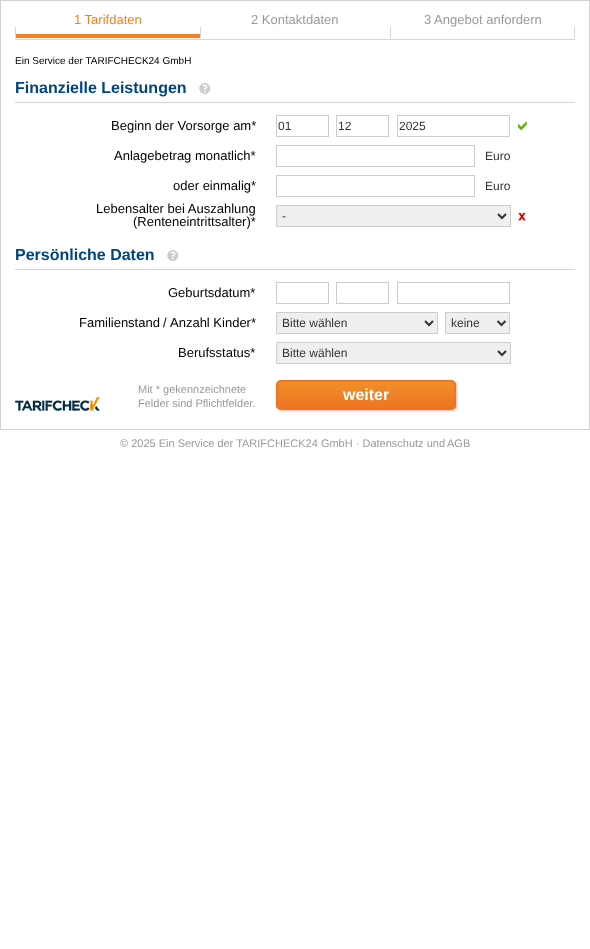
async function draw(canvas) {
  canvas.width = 590
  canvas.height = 949
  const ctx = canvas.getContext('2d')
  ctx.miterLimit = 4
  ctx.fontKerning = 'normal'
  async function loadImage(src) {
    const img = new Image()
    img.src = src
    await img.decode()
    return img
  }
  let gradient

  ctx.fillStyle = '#fff'
  ctx.fillRect(0, 0, 590, 949)
  ctx.strokeStyle = '#d0d0d0'
  ctx.strokeRect(0.5, 0.5, 589, 429)
  ctx.fillStyle = '#d5d5d5'
  ctx.fillRect(15, 39, 560, 1)
  ctx.fillStyle = '#f58120'
  ctx.fillRect(15, 34, 185, 4)
  ctx.font = '13px Liberation Sans'
  ctx.fillText('1 Tarifdaten', 74, 24)
  ctx.fillStyle = '#d5d5d5'
  ctx.fillRect(15, 27, 1, 11)
  ctx.fillStyle = '#999'
  ctx.fillText('2 Kontaktdaten', 251, 24)
  ctx.fillStyle = '#d5d5d5'
  ctx.fillRect(200, 27, 1, 11)
  ctx.fillStyle = '#999'
  ctx.fillText('3 Angebot anfordern', 424, 24)
  ctx.fillStyle = '#d5d5d5'
  ctx.fillRect(390, 27, 1, 11)
  ctx.fillRect(574, 27, 1, 11)
  ctx.font = '10px Liberation Sans'
  ctx.fillStyle = '#000'
  ctx.fillText('Ein Service der TARIFCHECK24 GmbH', 15, 64)
  ctx.font = 'bold 16px Liberation Sans'
  ctx.fillStyle = '#00447e'
  ctx.fillText('Finanzielle Leistungen', 15, 93)
  ctx.drawImage(await loadImage('image0.png'), 199, 83, 12, 11)
  ctx.fillStyle = '#d5d5d5'
  ctx.fillRect(15, 102, 560, 1)
  ctx.font = '13px Liberation Sans'
  ctx.fillStyle = '#000'
  ctx.fillText('Beginn der Vorsorge am*', 111, 130)
  ctx.strokeStyle = '#ccc'
  ctx.strokeRect(276.5, 115.5, 52, 21)
  ctx.font = '12px Liberation Sans'
  ctx.fillStyle = '#333'
  ctx.fillText('01', 278, 130)
  ctx.strokeRect(336.5, 115.5, 52, 21)
  ctx.fillText('12', 338, 130)
  ctx.strokeRect(397.5, 115.5, 112, 21)
  ctx.fillText('2025', 399, 130)
  ctx.drawImage(await loadImage('image1.png'), 518, 121, 9, 10)
  ctx.font = '13px Liberation Sans'
  ctx.fillStyle = '#000'
  ctx.fillText('Anlagebetrag monatlich*', 114, 160)
  ctx.strokeRect(276.5, 145.5, 198, 21)
  ctx.font = '12px Liberation Sans'
  ctx.fillStyle = '#333'
  ctx.fillText('Euro', 485, 160)
  ctx.font = '13px Liberation Sans'
  ctx.fillStyle = '#000'
  ctx.fillText('oder einmalig*', 173, 190)
  ctx.strokeRect(276.5, 175.5, 198, 21)
  ctx.font = '12px Liberation Sans'
  ctx.fillStyle = '#333'
  ctx.fillText('Euro', 485, 190)
  ctx.font = '13px Liberation Sans'
  ctx.fillStyle = '#000'
  ctx.fillText('Lebensalter bei Auszahlung', 96, 213)
  ctx.fillText('(Renteneintrittsalter)*', 133, 226)
  ctx.fillStyle = '#efefef'
  ctx.beginPath()
  ctx.rect(276.5, 205.5, 234, 21)
  ctx.fill()
  ctx.stroke()
  ctx.beginPath()
  ctx.moveTo(498, 214)
  ctx.lineTo(502, 218)
  ctx.lineTo(506, 214)
  ctx.strokeStyle = '#333'
  ctx.lineWidth = 2
  ctx.stroke()
  ctx.font = '12px Liberation Sans'
  ctx.fillStyle = '#333'
  ctx.fillText('-', 282, 220)
  ctx.drawImage(await loadImage('image2.png'), 518, 213, 8, 8)
  ctx.font = 'bold 16px Liberation Sans'
  ctx.fillStyle = '#00447e'
  ctx.fillText('Persönliche Daten', 15, 260)
  ctx.drawImage(await loadImage('image0.png'), 167, 250, 12, 11)
  ctx.fillStyle = '#d5d5d5'
  ctx.fillRect(15, 269, 560, 1)
  ctx.font = '13px Liberation Sans'
  ctx.fillStyle = '#000'
  ctx.fillText('Geburtsdatum*', 168, 297)
  ctx.strokeStyle = '#ccc'
  ctx.lineWidth = 1
  ctx.strokeRect(276.5, 282.5, 52, 21)
  ctx.strokeRect(336.5, 282.5, 52, 21)
  ctx.strokeRect(397.5, 282.5, 112, 21)
  ctx.fillText('Familienstand', 79, 327)
  ctx.fillText('/', 163, 327)
  ctx.fillText('Anzahl Kinder*', 170, 327)
  ctx.fillStyle = '#efefef'
  ctx.beginPath()
  ctx.rect(276.5, 312.5, 161, 21)
  ctx.fill()
  ctx.stroke()
  ctx.beginPath()
  ctx.moveTo(425, 321)
  ctx.lineTo(429, 325)
  ctx.lineTo(433, 321)
  ctx.strokeStyle = '#333'
  ctx.lineWidth = 2
  ctx.stroke()
  ctx.font = '12px Liberation Sans'
  ctx.fillStyle = '#333'
  ctx.fillText('Bitte wählen', 282, 327)
  ctx.fillStyle = '#efefef'
  ctx.beginPath()
  ctx.rect(445.5, 312.5, 64, 21)
  ctx.fill()
  ctx.strokeStyle = '#ccc'
  ctx.lineWidth = 1
  ctx.stroke()
  ctx.beginPath()
  ctx.moveTo(497.5, 321)
  ctx.lineTo(501.5, 325)
  ctx.lineTo(505.5, 321)
  ctx.strokeStyle = '#333'
  ctx.lineWidth = 2
  ctx.stroke()
  ctx.fillStyle = '#333'
  ctx.fillText('keine', 451, 327)
  ctx.font = '13px Liberation Sans'
  ctx.fillStyle = '#000'
  ctx.fillText('Berufsstatus*', 178, 357)
  ctx.fillStyle = '#efefef'
  ctx.beginPath()
  ctx.rect(276.5, 342.5, 234, 21)
  ctx.fill()
  ctx.strokeStyle = '#ccc'
  ctx.lineWidth = 1
  ctx.stroke()
  ctx.beginPath()
  ctx.moveTo(498, 351)
  ctx.lineTo(502, 355)
  ctx.lineTo(506, 351)
  ctx.strokeStyle = '#333'
  ctx.lineWidth = 2
  ctx.stroke()
  ctx.font = '12px Liberation Sans'
  ctx.fillStyle = '#333'
  ctx.fillText('Bitte wählen', 282, 357)
  ctx.drawImage(await loadImage('image3.png'), 15, 397, 85, 14)
  ctx.font = '11px Liberation Sans'
  ctx.fillStyle = '#999'
  ctx.fillText('Mit * gekennzeichnete', 138, 393)
  ctx.fillText('Felder sind Pflichtfelder.', 138, 407)
  ctx.fillStyle = '#6f00004d'
  ctx.filter = 'blur(1px)'
  ctx.beginPath()
  ctx.roundRect(277, 381, 180, 30, 5)
  ctx.fill()
  ctx.filter = 'none'
  ctx.save()
  ctx.beginPath()
  ctx.roundRect(276, 380, 180, 30, 5)
  ctx.clip()
  gradient = ctx.createLinearGradient(278, 382, 278, 408)
  gradient.addColorStop(0, '#f08f27')
  gradient.addColorStop(1, '#ed7423')
  ctx.fillStyle = gradient
  ctx.fillRect(276, 382, 180, 26)
  ctx.restore()
  ctx.beginPath()
  ctx.roundRect(277, 381, 178, 28, 4)
  ctx.strokeStyle = '#ed7523'
  ctx.stroke()
  ctx.font = 'bold 16px Liberation Sans'
  ctx.fillStyle = '#fff'
  ctx.fillText('weiter', 343, 400)
  ctx.font = '11px Liberation Sans'
  ctx.fillStyle = '#999'
  ctx.fillText('© 2025 Ein Service der TARIFCHECK24 GmbH · Datenschutz und', 120, 447)
  ctx.fillText('AGB', 447, 447)
}

draw(document.querySelector('canvas'))
